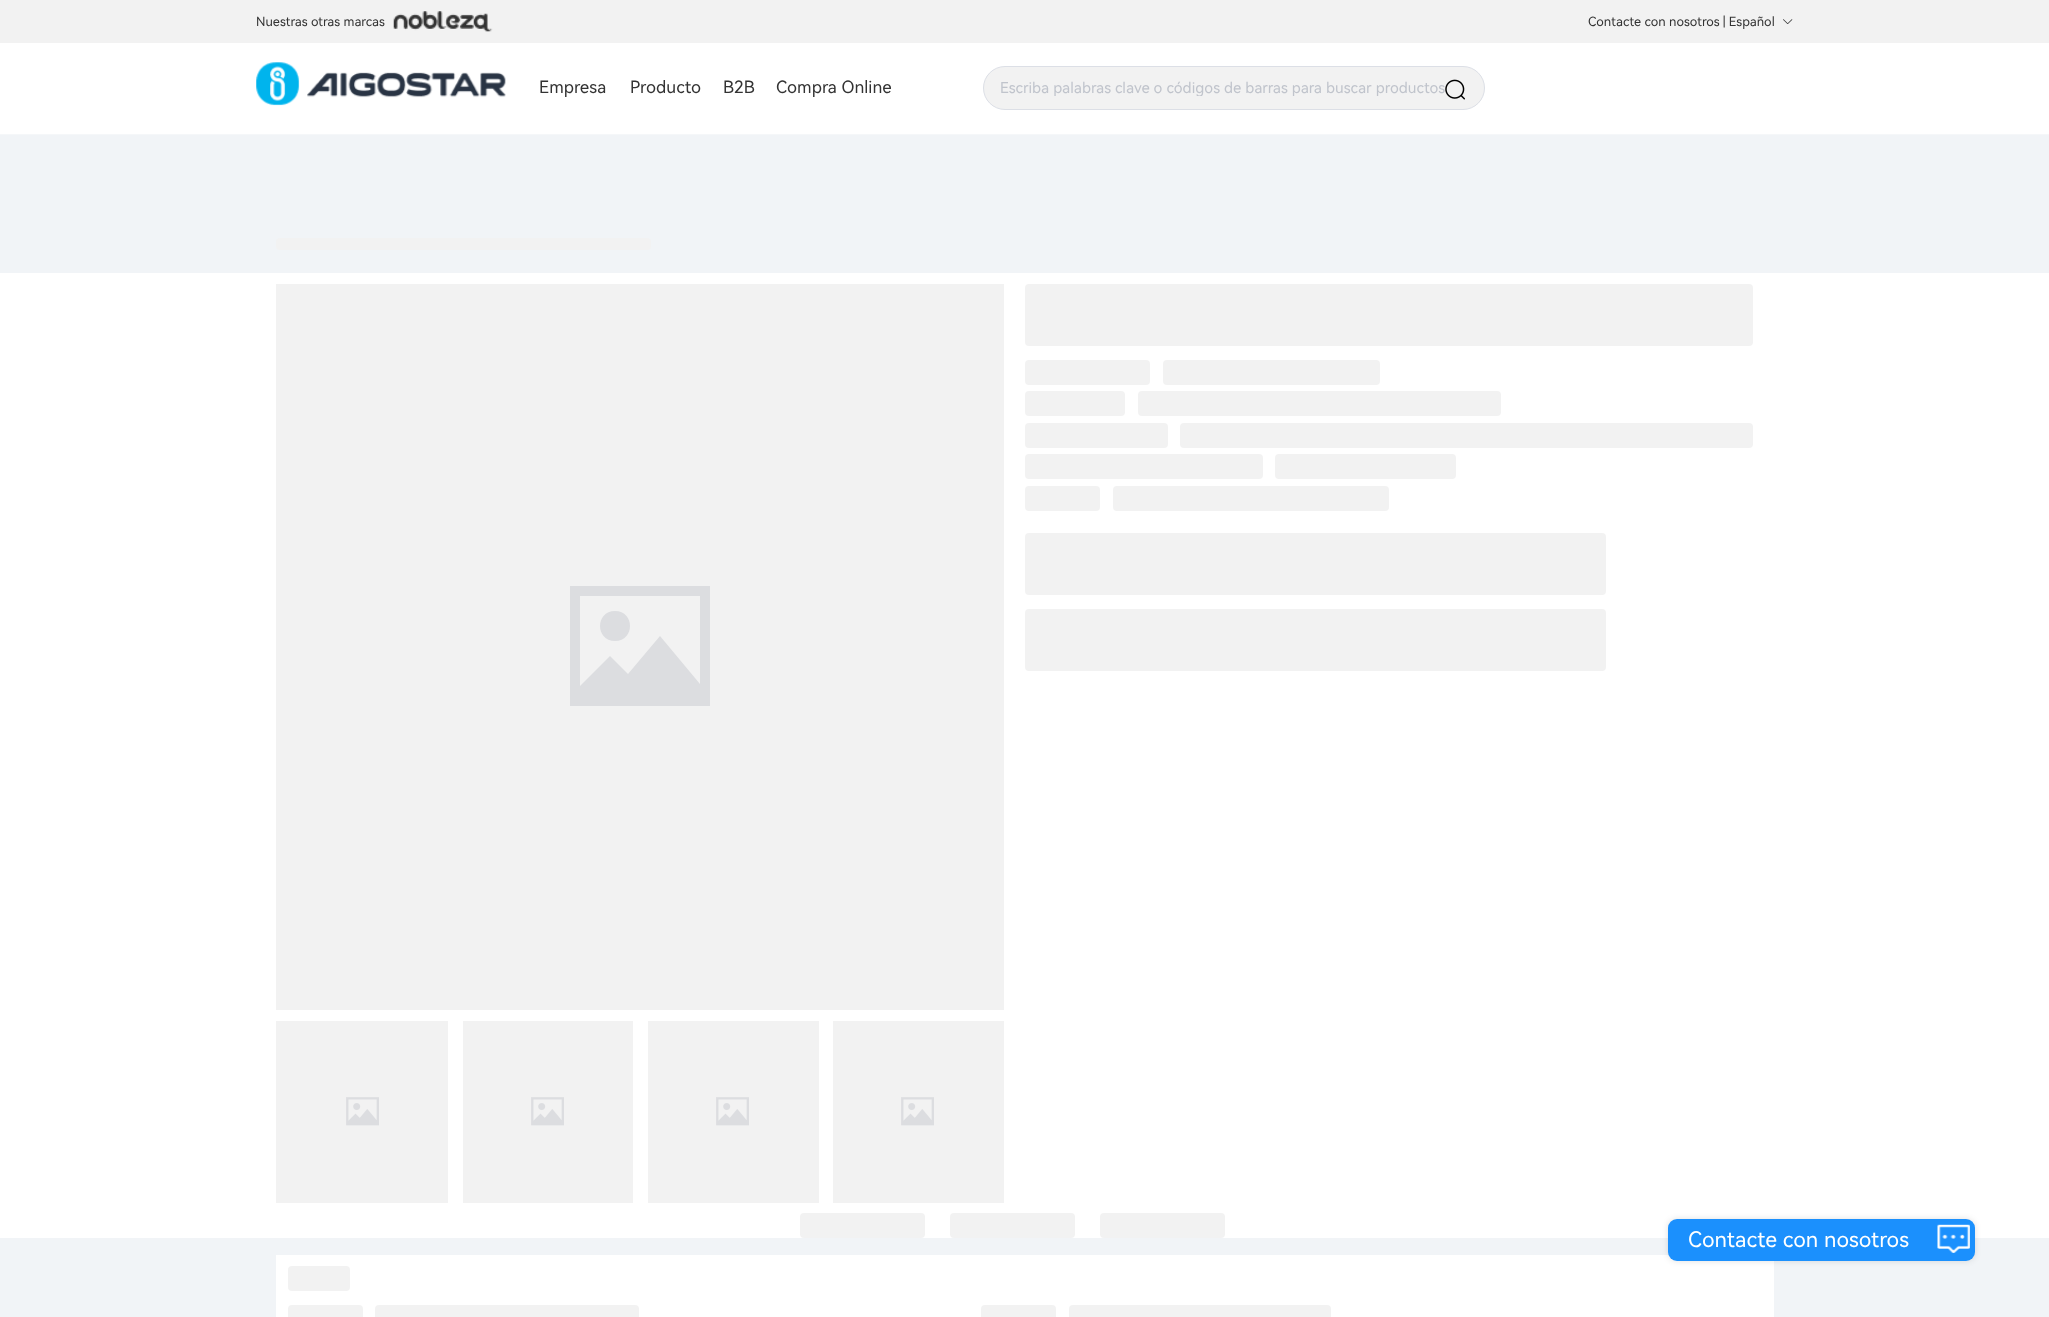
async function draw(canvas) {
  canvas.width = 2049
  canvas.height = 1317
  const ctx = canvas.getContext('2d')
  ctx.miterLimit = 4
  ctx.fontKerning = 'normal'
  async function loadImage(src) {
    const img = new Image()
    img.src = src
    await img.decode()
    return img
  }
  let gradient

  ctx.fillStyle = '#f1f4f7'
  ctx.fillRect(0, 0, 2049, 1317)
  ctx.fillStyle = '#f2f2f2'
  ctx.fillRect(0, 0, 2049, 43)
  ctx.font = '12.75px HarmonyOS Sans'
  ctx.fillStyle = '#333'
  ctx.fillText('Nuestras otras marcas', 256, 26)
  ctx.drawImage(await loadImage('image0.png'), 393, 11, 100, 21)
  ctx.fillText('Contacte con nosotros | Español', 1588, 26)
  ctx.drawImage(await loadImage('image1.png'), 1783, 19, 10, 5)
  ctx.fillStyle = '#fff'
  ctx.fillRect(0, 43, 2049, 91)
  ctx.fillStyle = '#f5f7f9'
  ctx.fillRect(0, 134, 2049, 1)
  ctx.drawImage(await loadImage('image2.png'), 256, 62, 250, 44)
  ctx.font = '17px HarmonyOS Sans'
  ctx.fillStyle = '#333'
  ctx.fillText('Empresa', 539, 93)
  ctx.fillText('Producto', 630, 93)
  ctx.fillText('B2B', 723, 93)
  ctx.fillText('Compra Online', 776, 93)
  ctx.fillStyle = '#f2f2f2'
  ctx.beginPath()
  ctx.roundRect(983.5, 66.5, 501, 43, 21.5)
  ctx.fill()
  ctx.strokeStyle = '#dcdfe6'
  ctx.stroke()
  ctx.save()
  ctx.beginPath()
  ctx.rect(1000, 79, 451, 17)
  ctx.clip()
  ctx.font = '14.95px HarmonyOS Sans'
  ctx.fillStyle = '#c0c4cc'
  ctx.fillText('Escriba palabras clave o códigos de barras para buscar productos', 1000, 93)
  ctx.restore()
  ctx.drawImage(await loadImage('image3.png'), 1445, 79, 20, 21)
  gradient = ctx.createLinearGradient(276, 244, 1776, 244)
  gradient.addColorStop(0.25, '#f2f2f2')
  gradient.addColorStop(0.37, '#e6e6e6')
  gradient.addColorStop(0.63, '#f2f2f2')
  ctx.fillStyle = gradient
  ctx.beginPath()
  ctx.roundRect(276, 238, 375, 12, 4)
  ctx.fill()
  ctx.fillStyle = '#fff'
  ctx.fillRect(0, 273, 2049, 965)
  gradient = ctx.createLinearGradient(276, 647, 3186, 647)
  gradient.addColorStop(0.25, '#f2f2f2')
  gradient.addColorStop(0.37, '#e6e6e6')
  gradient.addColorStop(0.63, '#f2f2f2')
  ctx.fillStyle = gradient
  ctx.fillRect(276, 284, 728, 726)
  ctx.fillStyle = '#dcdde0'
  ctx.beginPath()
  ctx.moveTo(570, 706)
  ctx.lineTo(570, 586)
  ctx.lineTo(710, 586)
  ctx.lineTo(710, 706)
  ctx.closePath()
  ctx.moveTo(580, 686)
  ctx.lineTo(610, 656)
  ctx.lineTo(628, 674)
  ctx.lineTo(660, 636)
  ctx.lineTo(700, 684)
  ctx.lineTo(700, 596)
  ctx.lineTo(580, 596)
  ctx.closePath()
  ctx.moveTo(615, 611)
  ctx.bezierCurveTo(635, 611, 635, 641, 615, 641)
  ctx.bezierCurveTo(595, 641, 595, 611, 615, 611)
  ctx.closePath()
  ctx.fill()
  gradient = ctx.createLinearGradient(276, 1112, 961, 1112)
  gradient.addColorStop(0.25, '#f2f2f2')
  gradient.addColorStop(0.37, '#e6e6e6')
  gradient.addColorStop(0.63, '#f2f2f2')
  ctx.fillStyle = gradient
  ctx.fillRect(276, 1021, 172, 182)
  ctx.drawImage(await loadImage('image4.png'), 346, 1097, 33, 29)
  gradient = ctx.createLinearGradient(463, 1112, 1143, 1112)
  gradient.addColorStop(0.25, '#f2f2f2')
  gradient.addColorStop(0.37, '#e6e6e6')
  gradient.addColorStop(0.63, '#f2f2f2')
  ctx.fillStyle = gradient
  ctx.fillRect(463, 1021, 170, 182)
  ctx.drawImage(await loadImage('image4.png'), 531, 1097, 33, 29)
  gradient = ctx.createLinearGradient(648, 1112, 1333, 1112)
  gradient.addColorStop(0.25, '#f2f2f2')
  gradient.addColorStop(0.37, '#e6e6e6')
  gradient.addColorStop(0.63, '#f2f2f2')
  ctx.fillStyle = gradient
  ctx.fillRect(648, 1021, 171, 182)
  ctx.drawImage(await loadImage('image4.png'), 716, 1097, 33, 29)
  gradient = ctx.createLinearGradient(833, 1112, 1518, 1112)
  gradient.addColorStop(0.25, '#f2f2f2')
  gradient.addColorStop(0.37, '#e6e6e6')
  gradient.addColorStop(0.63, '#f2f2f2')
  ctx.fillStyle = gradient
  ctx.fillRect(833, 1021, 171, 182)
  ctx.drawImage(await loadImage('image4.png'), 901, 1097, 33, 29)
  gradient = ctx.createLinearGradient(1025, 315, 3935, 315)
  gradient.addColorStop(0.25, '#f2f2f2')
  gradient.addColorStop(0.37, '#e6e6e6')
  gradient.addColorStop(0.63, '#f2f2f2')
  ctx.fillStyle = gradient
  ctx.beginPath()
  ctx.roundRect(1025, 284, 728, 62, 4)
  ctx.fill()
  gradient = ctx.createLinearGradient(1025, 373, 1525, 373)
  gradient.addColorStop(0.25, '#f2f2f2')
  gradient.addColorStop(0.37, '#e6e6e6')
  gradient.addColorStop(0.63, '#f2f2f2')
  ctx.fillStyle = gradient
  ctx.beginPath()
  ctx.roundRect(1025, 360, 125, 25, 4)
  ctx.fill()
  gradient = ctx.createLinearGradient(1163, 373, 2033, 373)
  gradient.addColorStop(0.25, '#f2f2f2')
  gradient.addColorStop(0.37, '#e6e6e6')
  gradient.addColorStop(0.63, '#f2f2f2')
  ctx.fillStyle = gradient
  ctx.beginPath()
  ctx.roundRect(1163, 360, 217, 25, 4)
  ctx.fill()
  gradient = ctx.createLinearGradient(1025, 404, 1425, 404)
  gradient.addColorStop(0.25, '#f2f2f2')
  gradient.addColorStop(0.37, '#e6e6e6')
  gradient.addColorStop(0.63, '#f2f2f2')
  ctx.fillStyle = gradient
  ctx.beginPath()
  ctx.roundRect(1025, 391, 100, 25, 4)
  ctx.fill()
  gradient = ctx.createLinearGradient(1138, 404, 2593, 404)
  gradient.addColorStop(0.25, '#f2f2f2')
  gradient.addColorStop(0.37, '#e6e6e6')
  gradient.addColorStop(0.63, '#f2f2f2')
  ctx.fillStyle = gradient
  ctx.beginPath()
  ctx.roundRect(1138, 391, 363, 25, 4)
  ctx.fill()
  gradient = ctx.createLinearGradient(1025, 435, 1595, 435)
  gradient.addColorStop(0.25, '#f2f2f2')
  gradient.addColorStop(0.37, '#e6e6e6')
  gradient.addColorStop(0.63, '#f2f2f2')
  ctx.fillStyle = gradient
  ctx.beginPath()
  ctx.roundRect(1025, 423, 143, 25, 4)
  ctx.fill()
  gradient = ctx.createLinearGradient(1180, 435, 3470, 435)
  gradient.addColorStop(0.25, '#f2f2f2')
  gradient.addColorStop(0.37, '#e6e6e6')
  gradient.addColorStop(0.63, '#f2f2f2')
  ctx.fillStyle = gradient
  ctx.beginPath()
  ctx.roundRect(1180, 423, 573, 25, 4)
  ctx.fill()
  gradient = ctx.createLinearGradient(1025, 466, 1975, 466)
  gradient.addColorStop(0.25, '#f2f2f2')
  gradient.addColorStop(0.37, '#e6e6e6')
  gradient.addColorStop(0.63, '#f2f2f2')
  ctx.fillStyle = gradient
  ctx.beginPath()
  ctx.roundRect(1025, 454, 238, 25, 4)
  ctx.fill()
  gradient = ctx.createLinearGradient(1275, 466, 2000, 466)
  gradient.addColorStop(0.25, '#f2f2f2')
  gradient.addColorStop(0.37, '#e6e6e6')
  gradient.addColorStop(0.63, '#f2f2f2')
  ctx.fillStyle = gradient
  ctx.beginPath()
  ctx.roundRect(1275, 454, 181, 25, 4)
  ctx.fill()
  gradient = ctx.createLinearGradient(1025, 499, 1325, 499)
  gradient.addColorStop(0.25, '#f2f2f2')
  gradient.addColorStop(0.37, '#e6e6e6')
  gradient.addColorStop(0.63, '#f2f2f2')
  ctx.fillStyle = gradient
  ctx.beginPath()
  ctx.roundRect(1025, 486, 75, 25, 4)
  ctx.fill()
  gradient = ctx.createLinearGradient(1113, 499, 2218, 499)
  gradient.addColorStop(0.25, '#f2f2f2')
  gradient.addColorStop(0.37, '#e6e6e6')
  gradient.addColorStop(0.63, '#f2f2f2')
  ctx.fillStyle = gradient
  ctx.beginPath()
  ctx.roundRect(1113, 486, 276, 25, 4)
  ctx.fill()
  gradient = ctx.createLinearGradient(1025, 564, 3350, 564)
  gradient.addColorStop(0.25, '#f2f2f2')
  gradient.addColorStop(0.37, '#e6e6e6')
  gradient.addColorStop(0.63, '#f2f2f2')
  ctx.fillStyle = gradient
  ctx.beginPath()
  ctx.roundRect(1025, 533, 581, 62, 4)
  ctx.fill()
  gradient = ctx.createLinearGradient(1025, 640, 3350, 640)
  gradient.addColorStop(0.25, '#f2f2f2')
  gradient.addColorStop(0.37, '#e6e6e6')
  gradient.addColorStop(0.63, '#f2f2f2')
  ctx.fillStyle = gradient
  ctx.beginPath()
  ctx.roundRect(1025, 609, 581, 62, 4)
  ctx.fill()
  gradient = ctx.createLinearGradient(800, 1225, 1300, 1225)
  gradient.addColorStop(0.25, '#f2f2f2')
  gradient.addColorStop(0.37, '#e6e6e6')
  gradient.addColorStop(0.63, '#f2f2f2')
  ctx.fillStyle = gradient
  ctx.beginPath()
  ctx.roundRect(800, 1213, 125, 25, 4)
  ctx.fill()
  gradient = ctx.createLinearGradient(950, 1225, 1450, 1225)
  gradient.addColorStop(0.25, '#f2f2f2')
  gradient.addColorStop(0.37, '#e6e6e6')
  gradient.addColorStop(0.63, '#f2f2f2')
  ctx.fillStyle = gradient
  ctx.beginPath()
  ctx.roundRect(950, 1213, 125, 25, 4)
  ctx.fill()
  gradient = ctx.createLinearGradient(1100, 1225, 1600, 1225)
  gradient.addColorStop(0.25, '#f2f2f2')
  gradient.addColorStop(0.37, '#e6e6e6')
  gradient.addColorStop(0.63, '#f2f2f2')
  ctx.fillStyle = gradient
  ctx.beginPath()
  ctx.roundRect(1100, 1213, 125, 25, 4)
  ctx.fill()
  ctx.fillStyle = '#fff'
  ctx.fillRect(276, 1255, 1498, 62)
  gradient = ctx.createLinearGradient(288, 1279, 538, 1279)
  gradient.addColorStop(0.25, '#f2f2f2')
  gradient.addColorStop(0.37, '#e6e6e6')
  gradient.addColorStop(0.63, '#f2f2f2')
  ctx.fillStyle = gradient
  ctx.beginPath()
  ctx.roundRect(288, 1266, 62, 25, 4)
  ctx.fill()
  gradient = ctx.createLinearGradient(288, 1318, 588, 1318)
  gradient.addColorStop(0.25, '#f2f2f2')
  gradient.addColorStop(0.37, '#e6e6e6')
  gradient.addColorStop(0.63, '#f2f2f2')
  ctx.fillStyle = gradient
  ctx.beginPath()
  ctx.roundRect(288, 1305, 75, 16, 4)
  ctx.fill()
  gradient = ctx.createLinearGradient(375, 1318, 1430, 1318)
  gradient.addColorStop(0.25, '#f2f2f2')
  gradient.addColorStop(0.37, '#e6e6e6')
  gradient.addColorStop(0.63, '#f2f2f2')
  ctx.fillStyle = gradient
  ctx.beginPath()
  ctx.roundRect(375, 1305, 264, 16, 4)
  ctx.fill()
  gradient = ctx.createLinearGradient(981, 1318, 1281, 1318)
  gradient.addColorStop(0.25, '#f2f2f2')
  gradient.addColorStop(0.37, '#e6e6e6')
  gradient.addColorStop(0.63, '#f2f2f2')
  ctx.fillStyle = gradient
  ctx.beginPath()
  ctx.roundRect(981, 1305, 75, 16, 4)
  ctx.fill()
  gradient = ctx.createLinearGradient(1069, 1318, 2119, 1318)
  gradient.addColorStop(0.25, '#f2f2f2')
  gradient.addColorStop(0.37, '#e6e6e6')
  gradient.addColorStop(0.63, '#f2f2f2')
  ctx.fillStyle = gradient
  ctx.beginPath()
  ctx.roundRect(1069, 1305, 262, 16, 4)
  ctx.fill()
  ctx.fillStyle = '#0000001f'
  ctx.filter = 'blur(3px)'
  ctx.beginPath()
  ctx.roundRect(1668, 1219, 307, 42, 9)
  ctx.fill()
  ctx.filter = 'none'
  ctx.fillStyle = '#1b90fd'
  ctx.beginPath()
  ctx.roundRect(1668, 1219, 307, 42, 9)
  ctx.fill()
  ctx.font = '21.4px HarmonyOS Sans'
  ctx.fillStyle = '#fff'
  ctx.fillText('Contacte con nosotros', 1688, 1247)
  ctx.drawImage(await loadImage('image5.png'), 1937, 1224, 33, 29)
}

draw(document.querySelector('canvas'))
